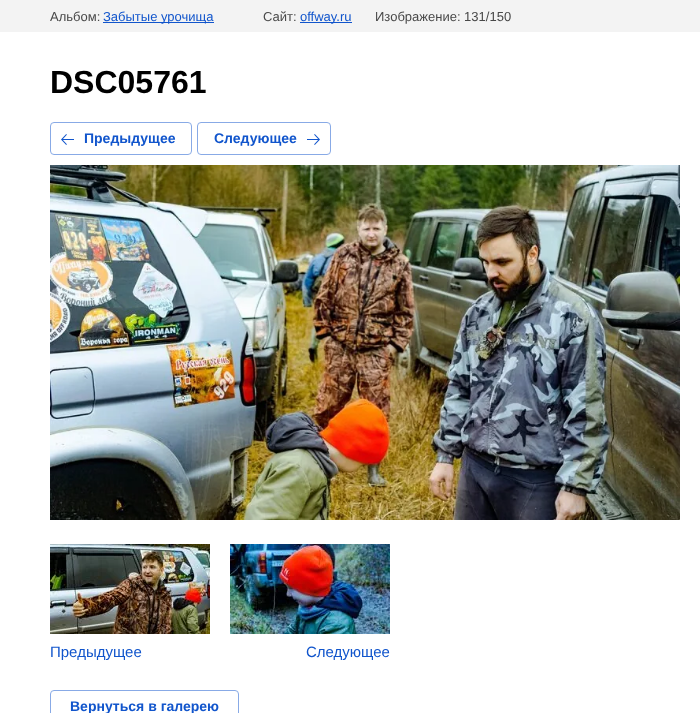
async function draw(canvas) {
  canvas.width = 700
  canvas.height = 713
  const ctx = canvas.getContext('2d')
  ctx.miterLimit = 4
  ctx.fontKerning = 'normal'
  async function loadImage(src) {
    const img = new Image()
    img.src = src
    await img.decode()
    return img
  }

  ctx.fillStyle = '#fff'
  ctx.fillRect(0, 0, 700, 713)
  ctx.fillStyle = '#f3f3f3'
  ctx.fillRect(0, 0, 700, 32)
  ctx.font = '13px Liberation Sans'
  ctx.fillStyle = '#484848'
  ctx.fillText('Альбом:', 50, 21)
  ctx.fillStyle = '#15c'
  ctx.fillRect(103, 22, 111, 1)
  ctx.fillText('Забытые урочища', 103, 21)
  ctx.fillStyle = '#484848'
  ctx.fillText('Сайт:', 263, 21)
  ctx.fillStyle = '#15c'
  ctx.fillRect(300, 22, 52, 1)
  ctx.fillText('offway.ru', 300, 21)
  ctx.fillStyle = '#484848'
  ctx.fillText('Изображение: 131/150', 375, 21)
  ctx.font = 'bold 32px Liberation Sans'
  ctx.fillStyle = '#000'
  ctx.fillText('DSC05761', 50, 93)
  ctx.beginPath()
  ctx.roundRect(50.5, 122.5, 141, 32, 3.5)
  ctx.strokeStyle = '#88aae6'
  ctx.stroke()
  ctx.drawImage(await loadImage('image0.png'), 61, 134, 13, 11)
  ctx.font = 'bold 14px Liberation Sans'
  ctx.fillStyle = '#15c'
  ctx.fillText('Предыдущее', 84, 143)
  ctx.beginPath()
  ctx.roundRect(197.5, 122.5, 133, 32, 3.5)
  ctx.stroke()
  ctx.fillText('Следующее', 214, 143)
  ctx.drawImage(await loadImage('image1.png'), 307, 134, 13, 11)
  ctx.drawImage(await loadImage('image2.png'), 50, 165, 630, 355)
  ctx.drawImage(await loadImage('image3.png'), 50, 544, 160, 90)
  ctx.font = '15px Liberation Sans'
  ctx.fillText('Предыдущее', 50, 657)
  ctx.drawImage(await loadImage('image4.png'), 230, 544, 160, 90)
  ctx.fillText('Следующее', 306, 657)
  ctx.beginPath()
  ctx.roundRect(50.5, 690.5, 188, 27, 3.5)
  ctx.stroke()
  ctx.font = 'bold 14px Liberation Sans'
  ctx.fillText('Вернуться в галерею', 70, 711)
}

draw(document.querySelector('canvas'))
